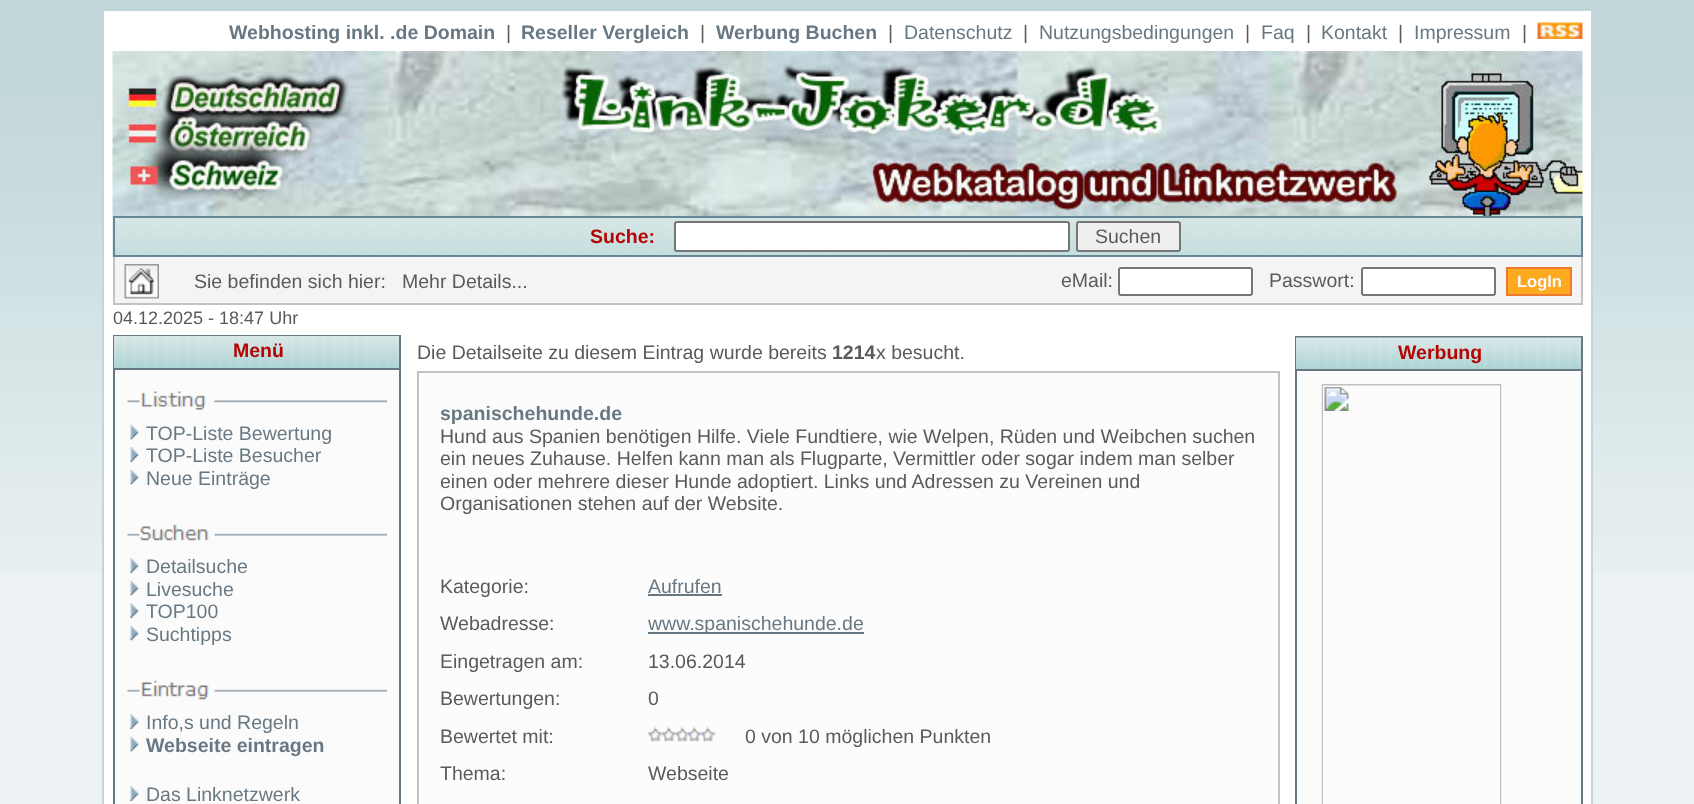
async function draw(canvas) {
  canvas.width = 1694
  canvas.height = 804
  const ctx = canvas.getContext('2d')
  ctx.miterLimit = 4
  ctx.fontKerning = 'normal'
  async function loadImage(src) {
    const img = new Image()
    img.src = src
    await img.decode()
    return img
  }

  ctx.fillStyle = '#ecf2f3'
  ctx.fillRect(0, 0, 1694, 804)
  ctx.drawImage(await loadImage('image0.png'), 0, 0, 1694, 572)
  ctx.fillStyle = '#fff'
  ctx.beginPath()
  ctx.rect(103, 10, 1489, 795)
  ctx.fill()
  ctx.strokeStyle = '#c1d6d9'
  ctx.lineWidth = 2
  ctx.stroke()
  ctx.font = 'bold 19.5px Liberation Sans'
  ctx.fillStyle = '#687883'
  ctx.fillText('Webhosting inkl. .de Domain', 229, 39)
  ctx.font = '19.5px Liberation Sans'
  ctx.fillStyle = '#5a5a5a'
  ctx.fillText('|', 506, 39)
  ctx.font = 'bold 19.5px Liberation Sans'
  ctx.fillStyle = '#687883'
  ctx.fillText('Reseller Vergleich', 521, 39)
  ctx.font = '19.5px Liberation Sans'
  ctx.fillStyle = '#5a5a5a'
  ctx.fillText('|', 700, 39)
  ctx.font = 'bold 19.5px Liberation Sans'
  ctx.fillStyle = '#687883'
  ctx.fillText('Werbung Buchen', 716, 39)
  ctx.font = '19.5px Liberation Sans'
  ctx.fillStyle = '#5a5a5a'
  ctx.fillText('|', 888, 39)
  ctx.fillStyle = '#687883'
  ctx.fillText('Datenschutz', 904, 39)
  ctx.fillStyle = '#5a5a5a'
  ctx.fillText('|', 1023, 39)
  ctx.fillStyle = '#687883'
  ctx.fillText('Nutzungsbedingungen', 1039, 39)
  ctx.fillStyle = '#5a5a5a'
  ctx.fillText('|', 1245, 39)
  ctx.fillStyle = '#687883'
  ctx.fillText('Faq', 1261, 39)
  ctx.fillStyle = '#5a5a5a'
  ctx.fillText('|', 1306, 39)
  ctx.fillStyle = '#687883'
  ctx.fillText('Kontakt', 1321, 39)
  ctx.fillStyle = '#5a5a5a'
  ctx.fillText('|', 1398, 39)
  ctx.fillStyle = '#687883'
  ctx.fillText('Impressum', 1414, 39)
  ctx.fillStyle = '#5a5a5a'
  ctx.fillText('|', 1522, 39)
  ctx.drawImage(await loadImage('image1.png'), 1537, 22, 46, 17)
  ctx.drawImage(await loadImage('image2.png'), 112, 51, 1471, 165)
  ctx.drawImage(await loadImage('image3.png'), 112, 216, 1469, 41)
  ctx.strokeStyle = '#658796'
  ctx.strokeRect(114, 217, 1468, 39)
  ctx.font = 'bold 19.5px Liberation Sans'
  ctx.fillStyle = '#b50404'
  ctx.fillText('Suche:', 590, 243)
  ctx.fillStyle = '#fff'
  ctx.beginPath()
  ctx.roundRect(675, 222, 394, 29, 2)
  ctx.fill()
  ctx.strokeStyle = '#767676'
  ctx.stroke()
  ctx.fillStyle = '#efefef'
  ctx.beginPath()
  ctx.roundRect(1077, 222, 103, 29, 2)
  ctx.fill()
  ctx.stroke()
  ctx.font = '19.5px Liberation Sans'
  ctx.fillStyle = '#5a5a5a'
  ctx.fillText('Suchen', 1095, 243)
  ctx.fillStyle = '#f4f4f4'
  ctx.fillRect(115, 257, 1466, 46)
  ctx.fillStyle = '#c2c2c2'
  ctx.fillRect(1581, 257, 2, 48)
  ctx.fillRect(113, 303, 1470, 2)
  ctx.fillRect(113, 257, 2, 48)
  ctx.drawImage(await loadImage('image4.png'), 124, 264, 35, 35)
  ctx.fillStyle = '#5a5a5a'
  ctx.fillText('Sie befinden sich hier:', 194, 288)
  ctx.fillText('Mehr Details...', 402, 288)
  ctx.fillText('eMail:', 1061, 287)
  ctx.fillStyle = '#fff'
  ctx.beginPath()
  ctx.roundRect(1119, 268, 133, 27, 2)
  ctx.fill()
  ctx.stroke()
  ctx.fillStyle = '#5a5a5a'
  ctx.fillText('Passwort:', 1269, 287)
  ctx.fillStyle = '#fff'
  ctx.beginPath()
  ctx.roundRect(1362, 268, 133, 27, 2)
  ctx.fill()
  ctx.stroke()
  ctx.fillStyle = '#fdaa20'
  ctx.beginPath()
  ctx.rect(1507, 268, 64, 27)
  ctx.fill()
  ctx.strokeStyle = '#ed792e'
  ctx.stroke()
  ctx.font = 'bold 16.5px Liberation Sans'
  ctx.fillStyle = '#fbfbfb'
  ctx.fillText('LogIn', 1517, 287)
  ctx.font = '18px Liberation Sans'
  ctx.fillStyle = '#5a5a5a'
  ctx.fillText('04.12.2025 - 18:47 Uhr', 113, 324)
  ctx.fillStyle = '#fbfbfb'
  ctx.fillRect(115, 370, 284, 434)
  ctx.strokeStyle = '#687883'
  ctx.strokeRect(114, 336, 286, 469)
  ctx.drawImage(await loadImage('image5.png'), 114, 336, 285, 32)
  ctx.fillStyle = '#687883'
  ctx.fillRect(114, 368, 285, 2)
  ctx.font = 'bold 19.5px Liberation Sans'
  ctx.fillStyle = '#b50404'
  ctx.fillText('Menü', 233, 357)
  ctx.drawImage(await loadImage('image6.png'), 127, 391, 260, 19)
  ctx.drawImage(await loadImage('image7.png'), 130, 424, 16, 16)
  ctx.font = '19.5px Liberation Sans'
  ctx.fillStyle = '#687883'
  ctx.fillText('TOP-Liste Bewertung', 146, 440)
  ctx.drawImage(await loadImage('image8.png'), 130, 447, 16, 15)
  ctx.fillText('TOP-Liste Besucher', 146, 462)
  ctx.drawImage(await loadImage('image7.png'), 130, 469, 16, 16)
  ctx.fillText('Neue Einträge', 146, 485)
  ctx.drawImage(await loadImage('image9.png'), 127, 524, 260, 17)
  ctx.drawImage(await loadImage('image8.png'), 130, 558, 16, 15)
  ctx.fillText('Detailsuche', 146, 573)
  ctx.drawImage(await loadImage('image7.png'), 130, 580, 16, 16)
  ctx.fillText('Livesuche', 146, 596)
  ctx.drawImage(await loadImage('image8.png'), 130, 603, 16, 15)
  ctx.fillText('TOP100', 146, 618)
  ctx.drawImage(await loadImage('image10.png'), 130, 625, 16, 16)
  ctx.fillText('Suchtipps', 146, 641)
  ctx.drawImage(await loadImage('image11.png'), 127, 680, 260, 20)
  ctx.drawImage(await loadImage('image12.png'), 130, 714, 16, 15)
  ctx.fillText('Info,s und Regeln', 146, 729)
  ctx.drawImage(await loadImage('image13.png'), 130, 736, 16, 16)
  ctx.font = 'bold 19.5px Liberation Sans'
  ctx.fillText('Webseite eintragen', 146, 752)
  ctx.drawImage(await loadImage('image8.png'), 130, 786, 16, 15)
  ctx.font = '19.5px Liberation Sans'
  ctx.fillText('Das Linknetzwerk', 146, 801)
  ctx.fillStyle = '#5a5a5a'
  ctx.fillText('Die Detailseite zu diesem Eintrag wurde bereits', 417, 359)
  ctx.font = 'bold 19.5px Liberation Sans'
  ctx.fillText('1214', 832, 359)
  ctx.font = '19.5px Liberation Sans'
  ctx.fillText('x besucht.', 876, 359)
  ctx.fillStyle = '#fcfcfc'
  ctx.beginPath()
  ctx.rect(418, 372, 861, 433)
  ctx.fill()
  ctx.strokeStyle = '#c2c2c2'
  ctx.stroke()
  ctx.font = 'bold 19.5px Liberation Sans'
  ctx.fillStyle = '#687883'
  ctx.fillText('spanischehunde.de', 440, 420)
  ctx.font = '19.5px Liberation Sans'
  ctx.fillStyle = '#5a5a5a'
  ctx.fillText('Hund aus Spanien benötigen Hilfe. Viele Fundtiere, wie Welpen, Rüden und Weibchen suchen', 440, 443)
  ctx.fillText('ein neues Zuhause. Helfen kann man als Flugparte, Vermittler oder sogar indem man selber', 440, 465)
  ctx.fillText('einen oder mehrere dieser Hunde adoptiert. Links und Adressen zu Vereinen und', 440, 488)
  ctx.fillText('Organisationen stehen auf der Website.', 440, 510)
  ctx.fillText('Kategorie:', 440, 593)
  ctx.fillStyle = '#687883'
  ctx.fillText('Aufrufen', 648, 593)
  ctx.fillRect(648, 594, 74, 2)
  ctx.fillStyle = '#5a5a5a'
  ctx.fillText('Webadresse:', 440, 630)
  ctx.fillStyle = '#687883'
  ctx.fillRect(648, 632, 216, 2)
  ctx.fillText('www.spanischehunde.de', 648, 630)
  ctx.fillStyle = '#5a5a5a'
  ctx.fillText('Eingetragen am:', 440, 668)
  ctx.fillText('13.06.2014', 648, 668)
  ctx.fillText('Bewertungen:', 440, 705)
  ctx.fillText('0', 648, 705)
  ctx.fillText('Bewertet mit:', 440, 743)
  ctx.drawImage(await loadImage('image14.png'), 648, 726, 68, 16)
  ctx.fillText('0 von 10 möglichen Punkten', 745, 743)
  ctx.fillText('Thema:', 440, 780)
  ctx.fillText('Webseite', 648, 780)
  ctx.fillStyle = '#fbfbfb'
  ctx.fillRect(1297, 371, 284, 433)
  ctx.strokeStyle = '#687883'
  ctx.strokeRect(1296, 337, 286, 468)
  ctx.drawImage(await loadImage('image15.png'), 1296, 337, 285, 32)
  ctx.fillStyle = '#687883'
  ctx.fillRect(1296, 369, 285, 2)
  ctx.font = 'bold 19.5px Liberation Sans'
  ctx.fillStyle = '#b50404'
  ctx.fillText('Werbung', 1398, 359)
  ctx.drawImage(await loadImage('image16.png'), 1321, 384, 181, 420)
}

draw(document.querySelector('canvas'))
